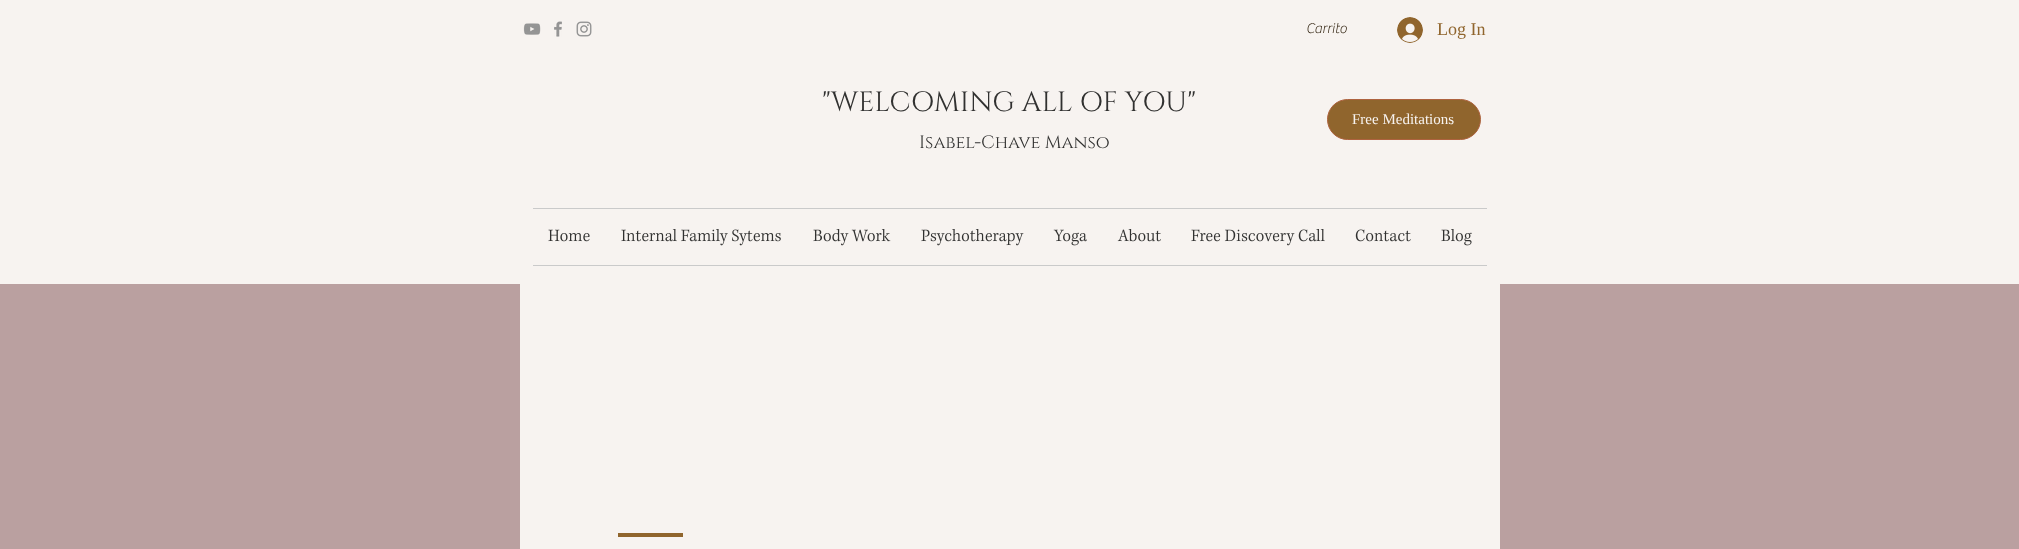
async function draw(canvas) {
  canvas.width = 2019
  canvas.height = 549
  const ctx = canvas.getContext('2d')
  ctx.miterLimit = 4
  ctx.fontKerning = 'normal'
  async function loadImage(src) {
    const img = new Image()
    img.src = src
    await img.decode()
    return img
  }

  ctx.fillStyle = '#baa0a0'
  ctx.fillRect(0, 0, 2019, 549)
  ctx.fillStyle = '#f7f3f0'
  ctx.fillRect(0, 0, 2019, 284)
  ctx.drawImage(await loadImage('image0.png'), 523, 23, 18, 12)
  ctx.drawImage(await loadImage('image1.png'), 554, 21, 8, 16)
  ctx.drawImage(await loadImage('image2.png'), 576, 21, 16, 16)
  ctx.font = '100 14.5px "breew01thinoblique"'
  ctx.fillStyle = '#30220f'
  ctx.fillText('Carrito', 1306, 33)
  ctx.drawImage(await loadImage('image3.png'), 1397, 17, 26, 26)
  ctx.font = '18px Liberation Serif'
  ctx.fillStyle = '#90652d'
  ctx.fillText('Log In', 1437, 35)
  ctx.font = '28px Cinzel'
  ctx.fillStyle = '#313130'
  ctx.fillText('"WELCOMING ALL OF YOU"', 822, 111)
  ctx.fillStyle = '#90652d'
  ctx.beginPath()
  ctx.roundRect(1327.5, 99.5, 153, 40, 20)
  ctx.fill()
  ctx.strokeStyle = '#ae633f'
  ctx.stroke()
  ctx.font = '15px Liberation Serif'
  ctx.fillStyle = '#f7f3f0'
  ctx.fillText('Free Meditations', 1352, 124)
  ctx.font = '18px Cinzel'
  ctx.fillStyle = '#313130'
  ctx.fillText('Isabel-Chave Manso', 919, 148)
  ctx.fillStyle = '#cacaca'
  ctx.fillRect(533, 208, 954, 1)
  ctx.fillRect(533, 265, 954, 1)
  ctx.drawImage(await loadImage('image4.png'), 548, 229, 42, 13)
  ctx.drawImage(await loadImage('image5.png'), 621, 229, 160, 17)
  ctx.drawImage(await loadImage('image6.png'), 813, 229, 78, 17)
  ctx.drawImage(await loadImage('image7.png'), 921, 229, 103, 17)
  ctx.drawImage(await loadImage('image8.png'), 1053, 229, 34, 17)
  ctx.drawImage(await loadImage('image9.png'), 1117, 229, 44, 13)
  ctx.drawImage(await loadImage('image10.png'), 1191, 229, 134, 17)
  ctx.drawImage(await loadImage('image11.png'), 1355, 229, 56, 13)
  ctx.drawImage(await loadImage('image12.png'), 1441, 229, 31, 17)
  ctx.fillStyle = '#f7f3f0'
  ctx.fillRect(520, 284, 980, 265)
  ctx.fillStyle = '#90652d'
  ctx.fillRect(618, 533, 65, 4)
}

draw(document.querySelector('canvas'))
